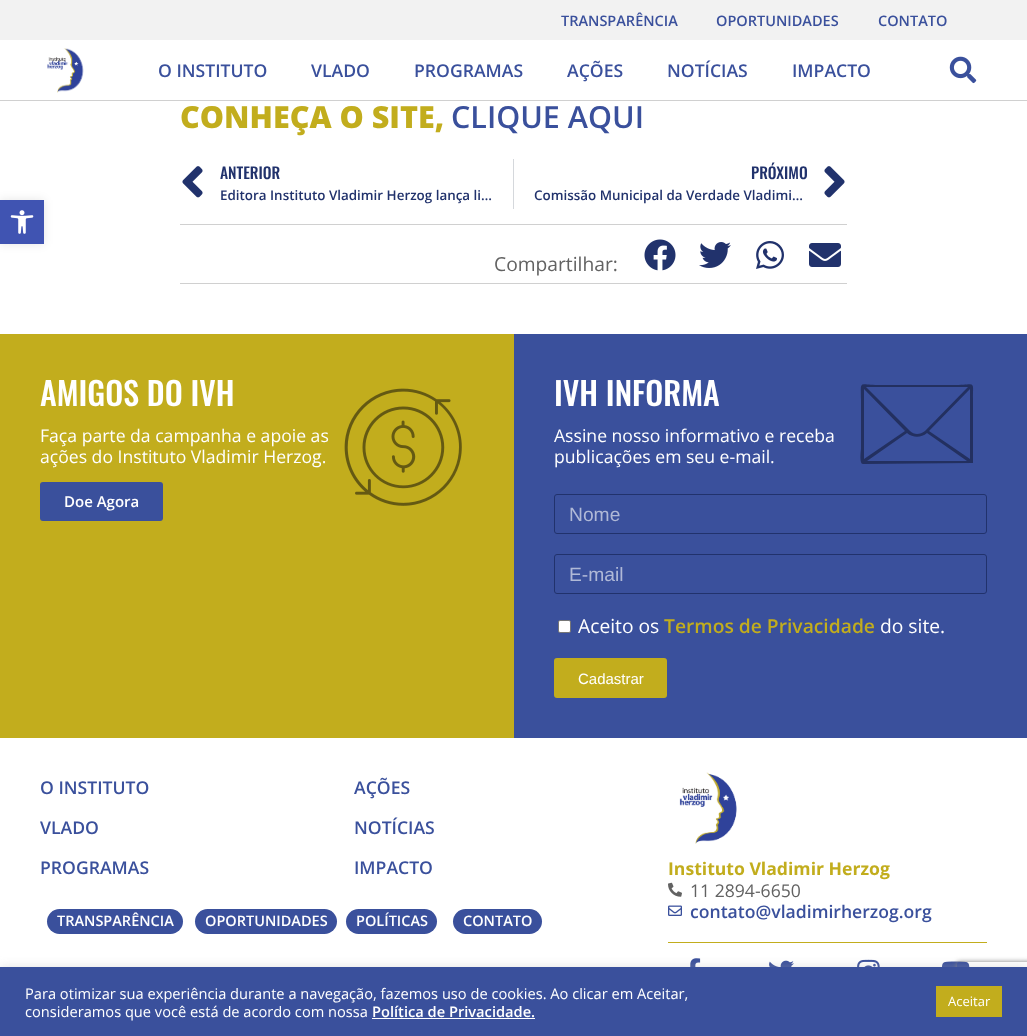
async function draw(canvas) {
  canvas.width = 1027
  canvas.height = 1036
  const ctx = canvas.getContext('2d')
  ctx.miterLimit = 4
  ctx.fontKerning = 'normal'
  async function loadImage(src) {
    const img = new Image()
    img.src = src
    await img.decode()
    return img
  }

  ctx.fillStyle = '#fff'
  ctx.fillRect(0, 0, 1027, 1036)
  ctx.fillStyle = '#f2f2f2'
  ctx.fillRect(0, 0, 1027, 40)
  ctx.font = '600 14.5px Open Sans'
  ctx.fillStyle = '#3a509c'
  ctx.fillText('TRANSPARÊNCIA', 561, 26)
  ctx.fillText('OPORTUNIDADES', 716, 26)
  ctx.fillText('CONTATO', 878, 26)
  ctx.fillStyle = '#d0d0d0'
  ctx.fillRect(0, 100, 1027, 1)
  ctx.drawImage(await loadImage('image0.png'), 47, 48, 37, 45)
  ctx.font = '600 17.6px Open Sans'
  ctx.fillStyle = '#3a509c'
  ctx.fillText('O INSTITUTO', 158, 77)
  ctx.fillText('VLADO', 311, 77)
  ctx.fillText('PROGRAMAS', 414, 77)
  ctx.fillText('AÇÕES', 567, 77)
  ctx.fillText('NOTÍCIAS', 667, 77)
  ctx.fillText('IMPACTO', 792, 77)
  ctx.drawImage(await loadImage('image1.png'), 949, 56, 28, 28)
  ctx.fillStyle = '#0000001a'
  ctx.filter = 'blur(5px)'
  ctx.beginPath()
  ctx.rect(0, 200, 44, 44)
  ctx.fill()
  ctx.filter = 'none'
  ctx.fillStyle = '#4054b2'
  ctx.fillRect(0, 200, 44, 44)
  ctx.drawImage(await loadImage('image2.png'), 10, 210, 24, 24)
  ctx.font = '800 30.5px Open Sans'
  ctx.fillStyle = '#c2ad1d'
  ctx.fillText('CONHEÇA O SITE,', 180, 128)
  ctx.font = '600 30.5px Open Sans'
  ctx.fillStyle = '#3a509c'
  ctx.fillText('CLIQUE AQUI', 451, 128)
  ctx.drawImage(await loadImage('image3.png'), 182, 166, 21, 32)
  ctx.font = '500 15.5px Oswald'
  ctx.fillStyle = '#21326c'
  ctx.fillText('ANTERIOR', 220, 179)
  ctx.font = '600 13.4px Open Sans'
  ctx.fillText('Editora Instituto Vladimir Herzog lança li…', 220, 200)
  ctx.fillStyle = '#d5d8dc'
  ctx.fillRect(513, 159, 1, 50)
  ctx.font = '500 15.5px Oswald'
  ctx.fillStyle = '#21326c'
  ctx.fillText('PRÓXIMO', 751, 179)
  ctx.font = '600 13.4px Open Sans'
  ctx.fillText('Comissão Municipal da Verdade Vladimi…', 534, 200)
  ctx.drawImage(await loadImage('image4.png'), 824, 166, 21, 32)
  ctx.fillStyle = '#d0d0d0'
  ctx.fillRect(180, 224, 667, 1)
  ctx.fillRect(180, 283, 667, 1)
  ctx.font = '19.25px Open Sans'
  ctx.fillStyle = '#626262'
  ctx.fillText('Compartilhar:', 494, 271)
  ctx.drawImage(await loadImage('image5.png'), 644, 239, 32, 32)
  ctx.drawImage(await loadImage('image6.png'), 699, 242, 32, 26)
  ctx.drawImage(await loadImage('image7.png'), 756, 241, 28, 28)
  ctx.drawImage(await loadImage('image8.png'), 809, 243, 32, 24)
  ctx.fillStyle = '#c2ad1d'
  ctx.fillRect(0, 334, 514, 404)
  ctx.fillStyle = '#3a509c'
  ctx.fillRect(514, 334, 513, 404)
  ctx.font = '500 32px Oswald'
  ctx.fillStyle = '#fff'
  ctx.fillText('AMIGOS DO IVH', 40, 406)
  ctx.font = '17.6px Open Sans'
  ctx.fillText('Faça parte da campanha e apoie as', 40, 442)
  ctx.fillText('ações do Instituto Vladimir Herzog.', 40, 463)
  ctx.fillStyle = '#3a509c'
  ctx.beginPath()
  ctx.roundRect(40, 482, 123, 39, 3)
  ctx.fill()
  ctx.font = '600 15px Open Sans'
  ctx.fillStyle = '#fff'
  ctx.fillText('Doe Agora', 64, 507)
  ctx.drawImage(await loadImage('image9.png'), 344, 388, 118, 118)
  ctx.font = '500 32px Oswald'
  ctx.fillText('IVH INFORMA', 554, 406)
  ctx.font = '17.6px Open Sans'
  ctx.fillText('Assine nosso informativo e receba', 554, 442)
  ctx.fillText('publicações em seu e-mail.', 554, 463)
  ctx.fillStyle = '#233060'
  ctx.beginPath()
  ctx.moveTo(863, 464)
  ctx.lineTo(972, 463)
  ctx.lineTo(973, 463)
  ctx.lineTo(973, 399)
  ctx.bezierCurveTo(973, 379, 976, 385, 953, 385)
  ctx.lineTo(881, 385)
  ctx.bezierCurveTo(858, 385, 861, 379, 861, 399)
  ctx.lineTo(861, 449)
  ctx.bezierCurveTo(861, 450, 859, 464, 863, 464)
  ctx.closePath()
  ctx.moveTo(970, 459)
  ctx.lineTo(929, 431)
  ctx.lineTo(970, 389)
  ctx.closePath()
  ctx.moveTo(866, 387)
  ctx.lineTo(968, 387)
  ctx.lineTo(925, 431)
  ctx.bezierCurveTo(920, 435, 914, 435, 910, 431)
  ctx.closePath()
  ctx.moveTo(967, 461)
  ctx.lineTo(867, 461)
  ctx.lineTo(907, 433)
  ctx.bezierCurveTo(913, 438, 921, 438, 927, 433)
  ctx.closePath()
  ctx.moveTo(864, 389)
  ctx.lineTo(905, 431)
  ctx.lineTo(864, 459)
  ctx.closePath()
  ctx.fill()
  ctx.beginPath()
  ctx.roundRect(554.5, 494.5, 432, 39, 2.5)
  ctx.strokeStyle = '#21326c'
  ctx.stroke()
  ctx.font = '19.25px Liberation Sans'
  ctx.fillStyle = '#b0b9d7'
  ctx.fillText('Nome', 569, 521)
  ctx.beginPath()
  ctx.roundRect(554.5, 554.5, 432, 39, 2.5)
  ctx.stroke()
  ctx.fillText('E-mail', 569, 581)
  ctx.fillStyle = '#fff'
  ctx.beginPath()
  ctx.roundRect(558.5, 620.5, 12, 12, 1.5)
  ctx.fill()
  ctx.strokeStyle = '#767676'
  ctx.stroke()
  ctx.font = '19.25px Open Sans'
  ctx.fillText('Aceito os', 578, 633)
  ctx.font = '600 19.25px Open Sans'
  ctx.fillStyle = '#c2ad1d'
  ctx.fillText('Termos de Privacidade', 664, 633)
  ctx.font = '19.25px Open Sans'
  ctx.fillStyle = '#fff'
  ctx.fillText('do site.', 880, 633)
  ctx.fillStyle = '#c2ad1d'
  ctx.beginPath()
  ctx.roundRect(554, 658, 113, 40, 3)
  ctx.fill()
  ctx.font = '15px Liberation Sans'
  ctx.fillStyle = '#fff'
  ctx.fillText('Cadastrar', 578, 684)
  ctx.drawImage(await loadImage('image16.png'), 942, 961, 28, 6)
  ctx.save()
  ctx.beginPath()
  ctx.moveTo(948, 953)
  ctx.lineTo(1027, 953)
  ctx.lineTo(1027, 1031)
  ctx.lineTo(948, 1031)
  ctx.closePath()
  ctx.moveTo(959, 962)
  ctx.lineTo(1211, 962)
  ctx.bezierCurveTo(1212, 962, 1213, 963, 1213, 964)
  ctx.lineTo(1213, 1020)
  ctx.bezierCurveTo(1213, 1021, 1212, 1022, 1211, 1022)
  ctx.lineTo(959, 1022)
  ctx.bezierCurveTo(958, 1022, 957, 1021, 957, 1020)
  ctx.lineTo(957, 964)
  ctx.bezierCurveTo(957, 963, 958, 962, 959, 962)
  ctx.closePath()
  ctx.clip('evenodd')
  ctx.fillStyle = '#808080'
  ctx.filter = 'blur(2.5px)'
  ctx.beginPath()
  ctx.roundRect(957, 962, 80, 60, 2)
  ctx.fill()
  ctx.filter = 'none'
  ctx.restore()
  ctx.font = '600 17.6px Open Sans'
  ctx.fillStyle = '#3a509c'
  ctx.fillText('O INSTITUTO', 40, 794)
  ctx.fillText('VLADO', 40, 834)
  ctx.fillText('PROGRAMAS', 40, 874)
  ctx.fillText('AÇÕES', 354, 794)
  ctx.fillText('NOTÍCIAS', 354, 834)
  ctx.fillText('IMPACTO', 354, 874)
  ctx.beginPath()
  ctx.roundRect(47, 909, 136, 25, 12.5)
  ctx.fill()
  ctx.font = '600 14.5px Open Sans'
  ctx.fillStyle = '#fff'
  ctx.fillText('TRANSPARÊNCIA', 57, 926)
  ctx.fillStyle = '#3a509c'
  ctx.beginPath()
  ctx.roundRect(195, 909, 142, 25, 12.5)
  ctx.fill()
  ctx.fillStyle = '#fff'
  ctx.fillText('OPORTUNIDADES', 205, 926)
  ctx.fillStyle = '#3a509c'
  ctx.beginPath()
  ctx.roundRect(346, 909, 91, 25, 12.5)
  ctx.fill()
  ctx.fillStyle = '#fff'
  ctx.fillText('POLÍTICAS', 356, 926)
  ctx.fillStyle = '#3a509c'
  ctx.beginPath()
  ctx.roundRect(453, 909, 89, 25, 12.5)
  ctx.fill()
  ctx.fillStyle = '#fff'
  ctx.fillText('CONTATO', 463, 926)
  ctx.drawImage(await loadImage('image10.png'), 679, 772, 58, 72)
  ctx.font = 'bold 17.6px Open Sans'
  ctx.fillStyle = '#c2ad1d'
  ctx.fillText('Instituto Vladimir Herzog', 668, 875)
  ctx.drawImage(await loadImage('image11.png'), 668, 882, 14, 15)
  ctx.font = '17.6px Open Sans'
  ctx.fillStyle = '#626262'
  ctx.fillText('11 2894-6650', 690, 897)
  ctx.drawImage(await loadImage('image12.png'), 668, 905, 14, 11)
  ctx.font = '600 17.6px Open Sans'
  ctx.fillStyle = '#3a509c'
  ctx.fillText('contato@vladimirherzog.org', 690, 918)
  ctx.fillStyle = '#c2ad1d'
  ctx.fillRect(668, 942, 319, 1)
  ctx.drawImage(await loadImage('image13.png'), 690, 958, 11, 9)
  ctx.drawImage(await loadImage('image14.png'), 769, 960, 25, 7)
  ctx.drawImage(await loadImage('image15.png'), 857, 959, 23, 8)
  ctx.fillStyle = '#acabab4d'
  ctx.filter = 'blur(5px)'
  ctx.beginPath()
  ctx.rect(0, 966, 1027, 69)
  ctx.fill()
  ctx.filter = 'none'
  ctx.fillStyle = '#3a509c'
  ctx.fillRect(0, 967, 1027, 69)
  ctx.font = '14.65px Open Sans'
  ctx.fillStyle = '#fff'
  ctx.fillText('Para otimizar sua experiência durante a navegação, fazemos uso de cookies. Ao clicar em Aceitar,', 25, 999)
  ctx.fillText('consideramos que você está de acordo com nossa', 25, 1017)
  ctx.font = '600 14.65px Open Sans'
  ctx.fillText('Política de Privacidade.', 372, 1017)
  ctx.fillRect(372, 1018, 163, 1)
  ctx.fillStyle = '#c2ad1d'
  ctx.fillRect(936, 986, 66, 31)
  ctx.font = '13px Open Sans'
  ctx.fillStyle = '#fff'
  ctx.fillText('Aceitar', 948, 1006)
}

draw(document.querySelector('canvas'))
